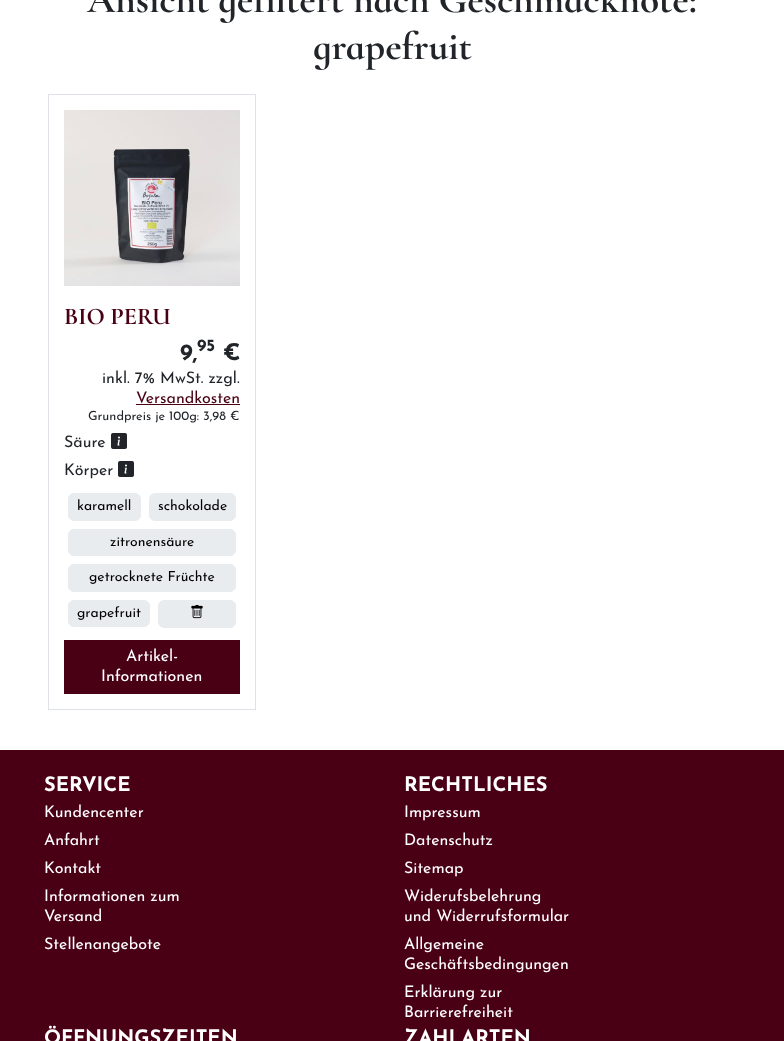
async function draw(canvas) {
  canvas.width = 784
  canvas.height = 1041
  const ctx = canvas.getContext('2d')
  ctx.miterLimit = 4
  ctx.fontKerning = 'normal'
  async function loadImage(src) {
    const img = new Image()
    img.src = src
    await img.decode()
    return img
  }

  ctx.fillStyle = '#fff'
  ctx.fillRect(0, 0, 784, 1041)
  ctx.font = 'bold 39.25px Cormorant Infant'
  ctx.fillStyle = '#212529'
  ctx.fillText('Ansicht gefiltert nach Geschmacknote:', 87, 12)
  ctx.fillText('grapefruit', 313, 59)
  ctx.strokeStyle = '#dee2e6'
  ctx.strokeRect(48.5, 94.5, 207, 615)
  ctx.drawImage(await loadImage('image0.png'), 64, 110, 176, 176)
  ctx.font = 'bold 24px Cormorant Infant'
  ctx.fillStyle = '#490014'
  ctx.fillText('BIO PERU', 64, 324)
  ctx.font = 'bold 23px Josefin Sans'
  ctx.fillStyle = '#212529'
  ctx.fillText('9,', 180, 360)
  ctx.font = 'bold 17px Josefin Sans'
  ctx.fillText('95', 197, 351)
  ctx.font = 'bold 23px Josefin Sans'
  ctx.fillText('€', 223, 360)
  ctx.font = '16px Josefin Sans'
  ctx.fillText('inkl. 7% MwSt. zzgl.', 102, 383)
  ctx.fillStyle = '#490014'
  ctx.fillText('Versandkosten', 136, 403)
  ctx.fillRect(136, 404, 104, 1)
  ctx.font = '12.75px Josefin Sans'
  ctx.fillStyle = '#212529'
  ctx.fillText('Grundpreis je 100g: 3,98 €', 88, 420)
  ctx.font = '16px Josefin Sans'
  ctx.fillText('Säure', 64, 447)
  ctx.drawImage(await loadImage('image1.png'), 111, 433, 16, 16)
  ctx.fillText('Körper', 64, 475)
  ctx.drawImage(await loadImage('image1.png'), 118, 461, 16, 16)
  ctx.fillStyle = '#e9ecef'
  ctx.beginPath()
  ctx.roundRect(68.5, 493.5, 72, 27, 5.5)
  ctx.fill()
  ctx.strokeStyle = '#e9ecef'
  ctx.stroke()
  ctx.font = '14px Josefin Sans'
  ctx.fillStyle = '#000'
  ctx.fillText('karamell', 77, 510)
  ctx.fillStyle = '#e9ecef'
  ctx.beginPath()
  ctx.roundRect(149.5, 493.5, 86, 27, 5.5)
  ctx.fill()
  ctx.stroke()
  ctx.fillStyle = '#000'
  ctx.fillText('schokolade', 158, 510)
  ctx.fillStyle = '#e9ecef'
  ctx.beginPath()
  ctx.roundRect(68.5, 529.5, 167, 26, 5.5)
  ctx.fill()
  ctx.stroke()
  ctx.fillStyle = '#000'
  ctx.fillText('zitronensäure', 110, 546)
  ctx.fillStyle = '#e9ecef'
  ctx.beginPath()
  ctx.roundRect(68.5, 564.5, 167, 27, 5.5)
  ctx.fill()
  ctx.stroke()
  ctx.fillStyle = '#000'
  ctx.fillText('getrocknete Früchte', 89, 581)
  ctx.fillStyle = '#e9ecef'
  ctx.beginPath()
  ctx.roundRect(68.5, 600.5, 81, 26, 5.5)
  ctx.fill()
  ctx.stroke()
  ctx.fillStyle = '#000'
  ctx.fillText('grapefruit', 77, 617)
  ctx.fillStyle = '#e9ecef'
  ctx.beginPath()
  ctx.roundRect(158.5, 600.5, 77, 27, 5.5)
  ctx.fill()
  ctx.stroke()
  ctx.drawImage(await loadImage('image2.png'), 191, 605, 12, 14)
  ctx.fillStyle = '#490014'
  ctx.fillRect(64, 640, 176, 54)
  ctx.font = '16px Josefin Sans'
  ctx.fillStyle = '#fff'
  ctx.fillText('Artikel-', 126, 661)
  ctx.fillText('Informationen', 101, 681)
  ctx.fillStyle = '#490014'
  ctx.fillRect(0, 750, 784, 291)
  ctx.font = 'bold 20px Josefin Sans'
  ctx.fillStyle = '#fff'
  ctx.fillText('SERVICE', 44, 791)
  ctx.font = '16px Josefin Sans'
  ctx.fillText('Kundencenter', 44, 817)
  ctx.fillText('Anfahrt', 44, 845)
  ctx.fillText('Kontakt', 44, 873)
  ctx.fillText('Informationen zum', 44, 901)
  ctx.fillText('Versand', 44, 921)
  ctx.fillText('Stellenangebote', 44, 949)
  ctx.font = 'bold 20px Josefin Sans'
  ctx.fillText('RECHTLICHES', 404, 791)
  ctx.font = '16px Josefin Sans'
  ctx.fillText('Impressum', 404, 817)
  ctx.fillText('Datenschutz', 404, 845)
  ctx.fillText('Sitemap', 404, 873)
  ctx.fillText('Widerufsbelehrung', 404, 901)
  ctx.fillText('und Widerrufsformular', 404, 921)
  ctx.fillText('Allgemeine', 404, 949)
  ctx.fillText('Geschäftsbedingungen', 404, 969)
  ctx.fillText('Erklärung zur', 404, 997)
  ctx.fillText('Barrierefreiheit', 404, 1017)
  ctx.font = 'bold 20px Josefin Sans'
  ctx.fillText('ÖFFNUNGSZEITEN', 44, 1044)
  ctx.fillText('ZAHLARTEN', 404, 1044)
}

draw(document.querySelector('canvas'))
